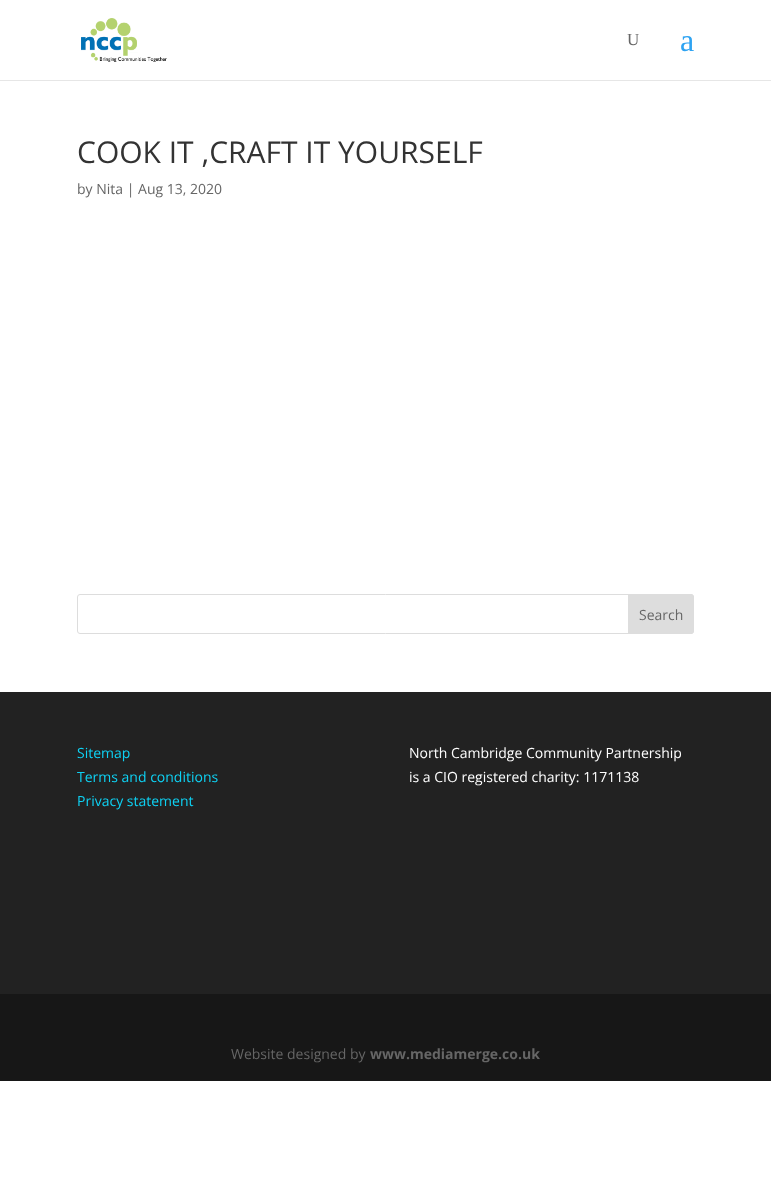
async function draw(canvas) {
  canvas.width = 771
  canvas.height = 1204
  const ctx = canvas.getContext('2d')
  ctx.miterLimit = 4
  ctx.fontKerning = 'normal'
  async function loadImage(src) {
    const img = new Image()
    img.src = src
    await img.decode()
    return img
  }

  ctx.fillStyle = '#fff'
  ctx.fillRect(0, 0, 771, 1204)
  ctx.fillStyle = '#e6e6e6'
  ctx.fillRect(0, 80, 771, 1)
  ctx.drawImage(await loadImage('image0.png'), 81, 18, 86, 44)
  ctx.font = '17px Liberation Serif'
  ctx.fillStyle = '#666'
  ctx.fillText('U', 627, 45)
  ctx.font = '32px Liberation Serif'
  ctx.fillStyle = '#2ea3f2'
  ctx.fillText('a', 680, 51)
  ctx.font = '30px Open Sans'
  ctx.fillStyle = '#333'
  ctx.fillText('COOK IT ,CRAFT IT YOURSELF', 77, 163)
  ctx.font = '14px Open Sans'
  ctx.fillStyle = '#666'
  ctx.fillText('by Nita | Aug 13, 2020', 77, 194)
  ctx.beginPath()
  ctx.roundRect(77.5, 594.5, 616, 39, 2.5)
  ctx.strokeStyle = '#ddd'
  ctx.stroke()
  ctx.fillStyle = '#ddd'
  ctx.beginPath()
  ctx.roundRect(628.5, 594.5, 65, 39, [0, 2.5, 2.5, 0])
  ctx.fill()
  ctx.stroke()
  ctx.fillStyle = '#666'
  ctx.fillText('Search', 639, 620)
  ctx.fillStyle = '#222'
  ctx.fillRect(0, 692, 771, 302)
  ctx.fillStyle = '#0ed2f4'
  ctx.fillText('Sitemap', 77, 758)
  ctx.fillText('Terms and conditions', 77, 782)
  ctx.fillText('Privacy statement', 77, 806)
  ctx.fillStyle = '#fff'
  ctx.fillText('North Cambridge Community Partnership', 409, 758)
  ctx.fillText('is a CIO registered charity: 1171138', 409, 782)
  ctx.fillStyle = '#171717'
  ctx.fillRect(0, 994, 771, 87)
  ctx.fillStyle = '#666'
  ctx.fillText('Website designed by', 231, 1059)
  ctx.font = 'bold 14px Open Sans'
  ctx.fillText('www.mediamerge.co.uk', 370, 1059)
}

draw(document.querySelector('canvas'))
